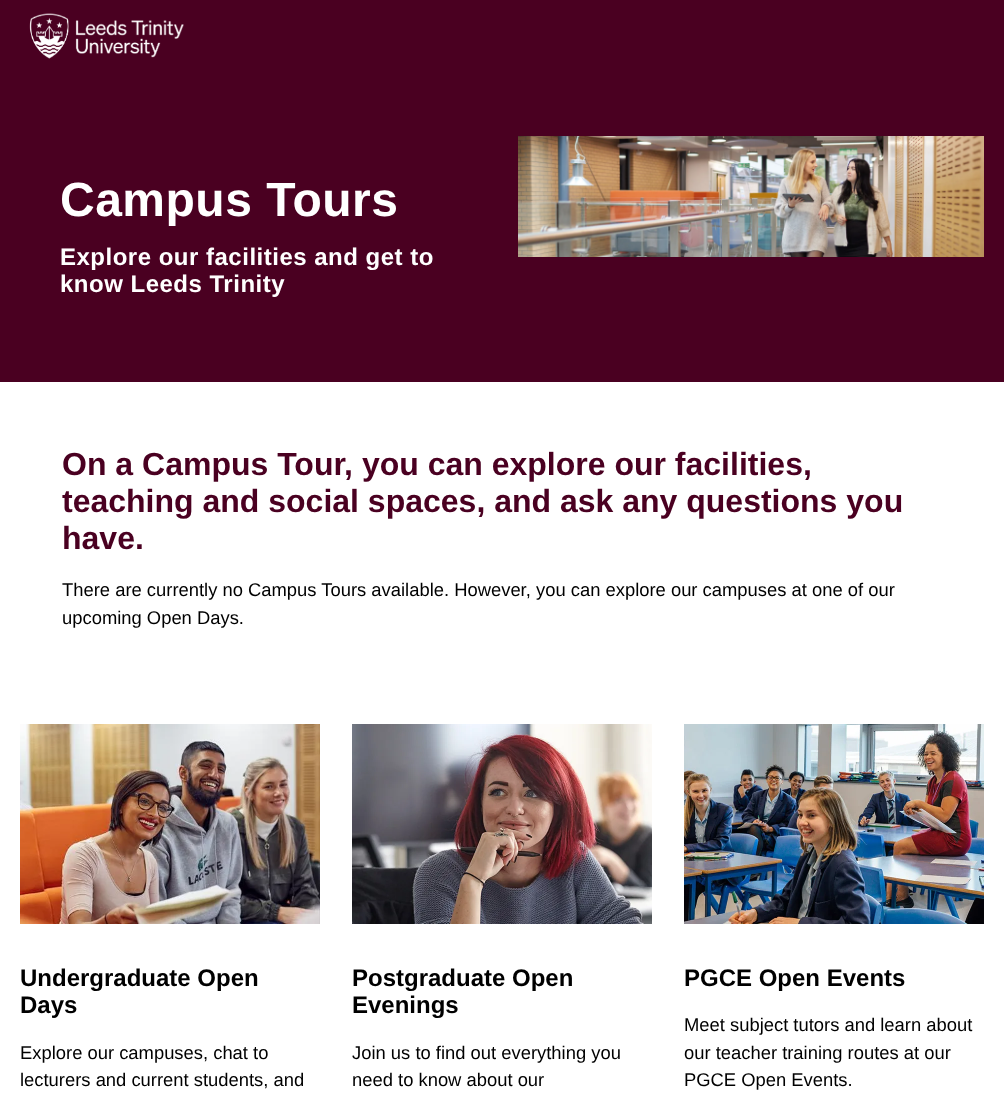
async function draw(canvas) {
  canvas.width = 1004
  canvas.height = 1110
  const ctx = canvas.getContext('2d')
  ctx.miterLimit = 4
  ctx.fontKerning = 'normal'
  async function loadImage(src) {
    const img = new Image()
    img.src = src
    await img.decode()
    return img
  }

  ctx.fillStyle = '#fff'
  ctx.fillRect(0, 0, 1004, 1110)
  ctx.fillStyle = '#4a0021'
  ctx.fillRect(0, 0, 1004, 382)
  ctx.drawImage(await loadImage('image0.png'), 29, 13, 155, 46)
  ctx.letterSpacing = '0.5px'
  ctx.font = 'bold 48px Liberation Sans'
  ctx.fillStyle = '#fff'
  ctx.fillText('Campus Tours', 60, 216)
  ctx.font = 'bold 24px Liberation Sans'
  ctx.fillText('Explore our facilities and get to', 60, 265)
  ctx.fillText('know Leeds Trinity', 60, 292)
  ctx.drawImage(await loadImage('image1.png'), 518, 136, 466, 121)
  ctx.letterSpacing = '0px'
  ctx.font = 'bold 32px Liberation Sans'
  ctx.fillStyle = '#4a0021'
  ctx.fillText('On a Campus Tour, you can explore our facilities,', 62, 475)
  ctx.fillText('teaching and social spaces, and ask any questions you', 62, 512)
  ctx.fillText('have.', 62, 549)
  ctx.font = '18.4px Liberation Sans'
  ctx.fillStyle = '#000'
  ctx.fillText('There are currently no Campus Tours available. However, you can explore our campuses at one of our', 62, 596)
  ctx.fillText('upcoming Open Days.', 62, 624)
  ctx.drawImage(await loadImage('image2.png'), 20, 724, 300, 200)
  ctx.font = 'bold 24px Liberation Sans'
  ctx.fillText('Undergraduate Open', 20, 986)
  ctx.fillText('Days', 20, 1013)
  ctx.font = '18.4px Liberation Sans'
  ctx.fillText('Explore our campuses, chat to', 20, 1059)
  ctx.fillText('lecturers and current students, and', 20, 1086)
  ctx.drawImage(await loadImage('image3.png'), 352, 724, 300, 200)
  ctx.font = 'bold 24px Liberation Sans'
  ctx.fillText('Postgraduate Open', 352, 986)
  ctx.fillText('Evenings', 352, 1013)
  ctx.font = '18.4px Liberation Sans'
  ctx.fillText('Join us to find out everything you', 352, 1059)
  ctx.fillText('need to know about our', 352, 1086)
  ctx.drawImage(await loadImage('image4.png'), 684, 724, 300, 200)
  ctx.font = 'bold 24px Liberation Sans'
  ctx.fillText('PGCE Open Events', 684, 986)
  ctx.font = '18.4px Liberation Sans'
  ctx.fillText('Meet subject tutors and learn about', 684, 1031)
  ctx.fillText('our teacher training routes at our', 684, 1059)
  ctx.fillText('PGCE Open Events.', 684, 1086)
}

draw(document.querySelector('canvas'))
